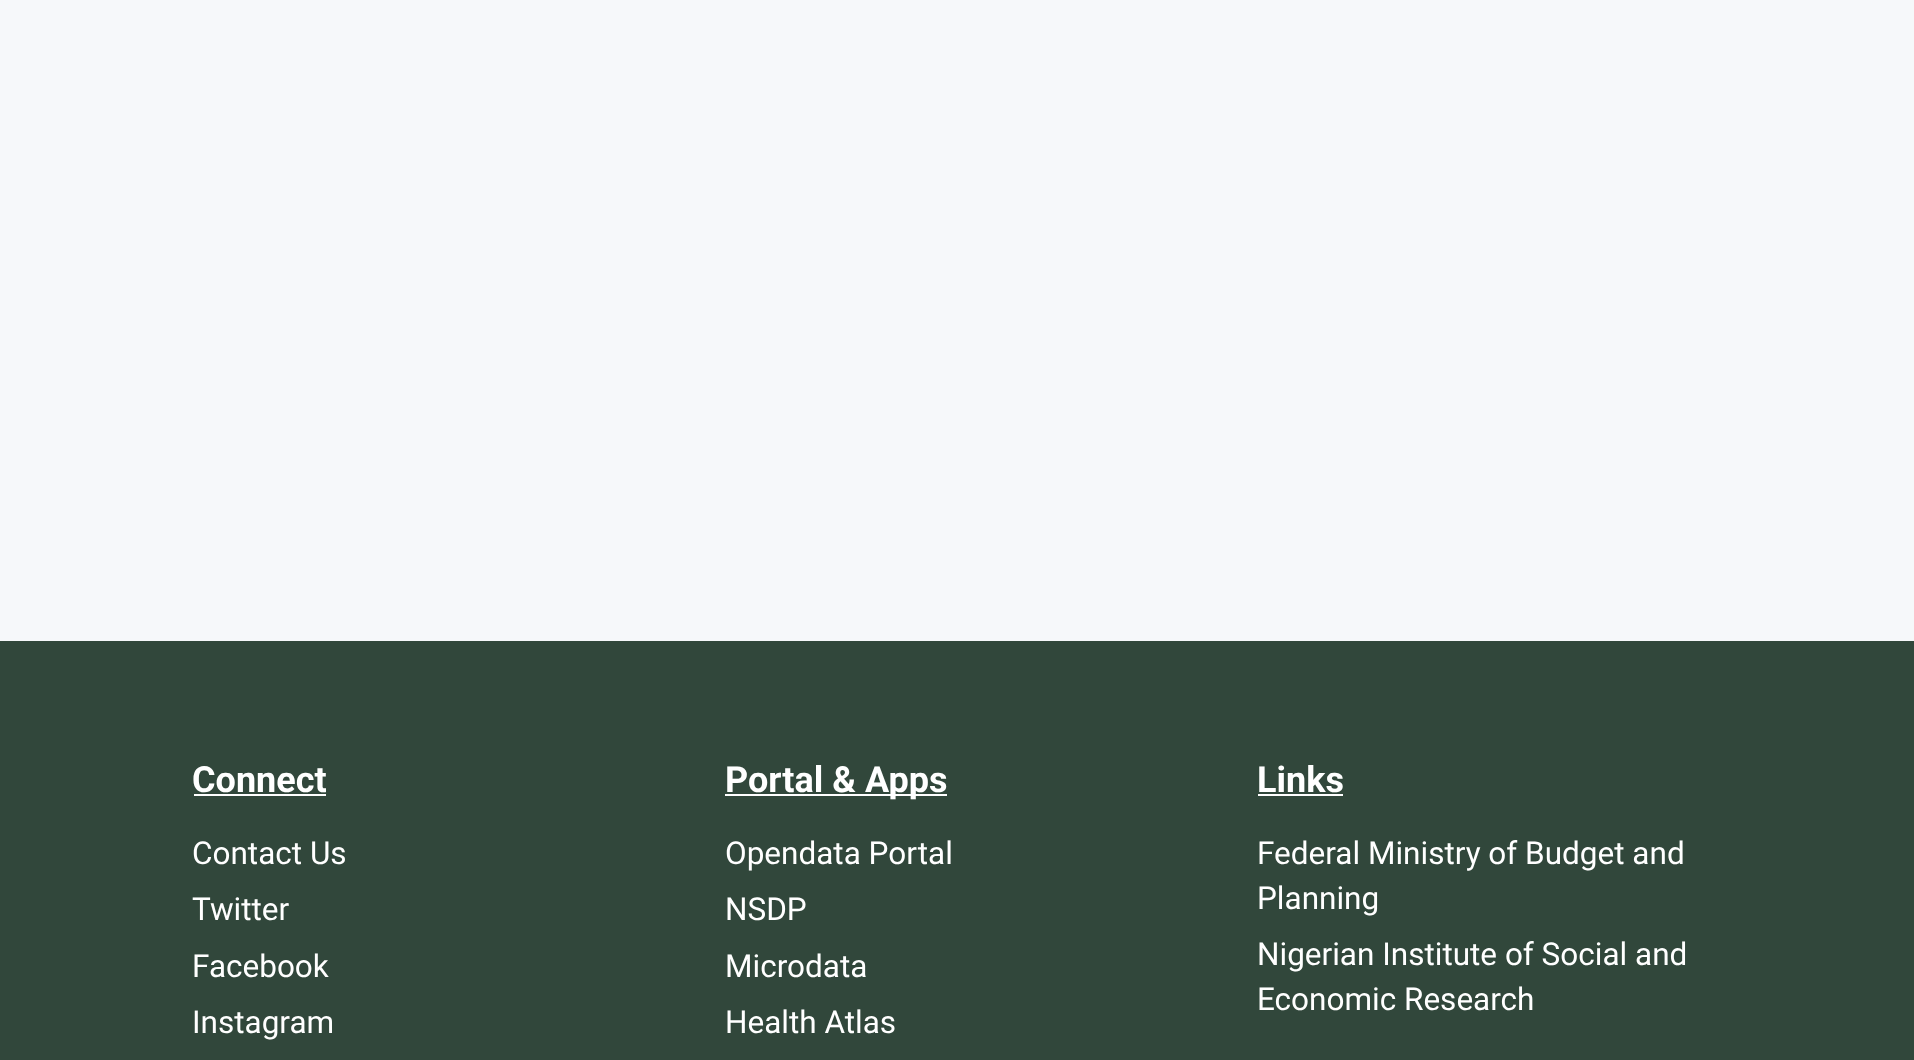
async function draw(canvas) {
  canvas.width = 1914
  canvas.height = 1060
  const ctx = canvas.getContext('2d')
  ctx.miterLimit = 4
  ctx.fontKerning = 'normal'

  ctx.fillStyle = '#f6f8fa'
  ctx.fillRect(0, 0, 1914, 1060)
  ctx.fillStyle = '#31473b'
  ctx.fillRect(0, 641, 1914, 419)
  ctx.font = 'bold 36px Roboto'
  ctx.fillStyle = '#fff'
  ctx.fillText('Connect', 192, 792)
  ctx.fillRect(194, 794, 132, 2)
  ctx.font = '31.5px Roboto'
  ctx.fillText('Contact Us', 192, 864)
  ctx.fillText('Twitter', 192, 920)
  ctx.fillText('Facebook', 192, 977)
  ctx.fillText('Instagram', 192, 1033)
  ctx.fillRect(725, 794, 222, 2)
  ctx.font = 'bold 36px Roboto'
  ctx.fillText('Portal & Apps', 725, 792)
  ctx.font = '31.5px Roboto'
  ctx.fillText('Opendata Portal', 725, 864)
  ctx.fillText('NSDP', 725, 920)
  ctx.fillText('Microdata', 725, 977)
  ctx.fillText('Health Atlas', 725, 1033)
  ctx.font = 'bold 36px Roboto'
  ctx.fillText('Links', 1257, 792)
  ctx.fillRect(1258, 794, 85, 2)
  ctx.font = '31.5px Roboto'
  ctx.fillText('Federal Ministry of Budget and', 1257, 864)
  ctx.fillText('Planning', 1257, 909)
  ctx.fillText('Nigerian Institute of Social and', 1257, 965)
  ctx.fillText('Economic Research', 1257, 1010)
}

draw(document.querySelector('canvas'))
